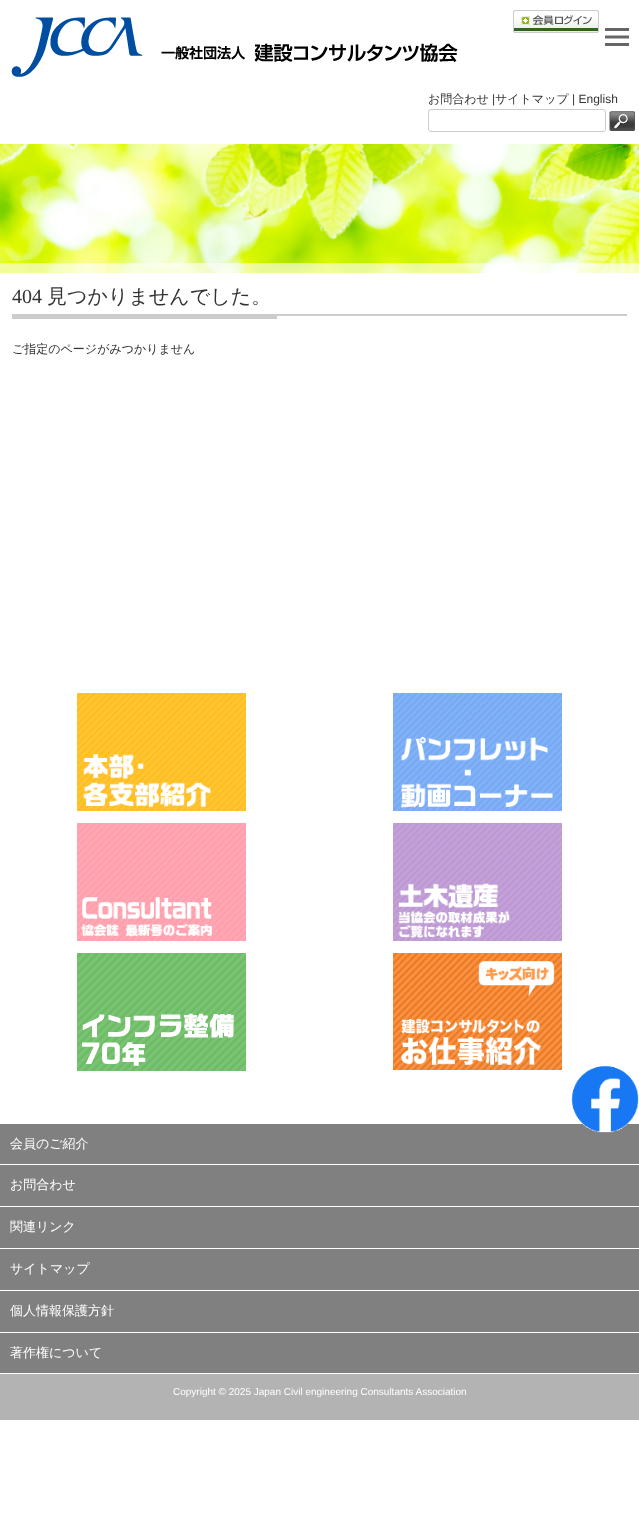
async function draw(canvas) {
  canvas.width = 639
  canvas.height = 1519
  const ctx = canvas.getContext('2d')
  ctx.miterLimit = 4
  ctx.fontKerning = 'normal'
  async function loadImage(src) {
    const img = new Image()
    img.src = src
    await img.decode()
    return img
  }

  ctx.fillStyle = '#fff'
  ctx.fillRect(0, 0, 639, 1519)
  ctx.drawImage(await loadImage('image0.png'), 11, 17, 447, 60)
  ctx.drawImage(await loadImage('image1.png'), 605, 28, 24, 18)
  ctx.drawImage(await loadImage('image2.png'), 513, 10, 86, 23)
  ctx.font = '500 12px WenQuanYi Zen Hei'
  ctx.fillStyle = '#333'
  ctx.fillText('お問合わせ', 428, 103)
  ctx.font = '12px Liberation Sans'
  ctx.fillText('|', 492, 103)
  ctx.font = '500 12px WenQuanYi Zen Hei'
  ctx.fillText('サイトマップ', 495, 103)
  ctx.font = '12px Liberation Sans'
  ctx.fillText('| English', 572, 103)
  ctx.beginPath()
  ctx.roundRect(428.5, 109.5, 177, 22, 2.5)
  ctx.strokeStyle = '#ccc'
  ctx.stroke()
  ctx.drawImage(await loadImage('image3.png'), 609, 111, 26, 20)
  ctx.drawImage(await loadImage('image4.png'), 0, 144, 639, 129)
  ctx.drawImage(await loadImage('image5.png'), 12, 314, 615, 5)
  ctx.font = '20px Liberation Serif'
  ctx.fillText('404', 12, 303)
  ctx.font = '500 20px WenQuanYi Zen Hei'
  ctx.fillText('見つかりませんでした。', 47, 303)
  ctx.font = '500 12px WenQuanYi Zen Hei'
  ctx.fillText('ご指定のページがみつかりません', 12, 353)
  ctx.drawImage(await loadImage('image6.png'), 77, 693, 169, 118)
  ctx.drawImage(await loadImage('image7.png'), 393, 693, 169, 118)
  ctx.drawImage(await loadImage('image8.png'), 77, 823, 169, 118)
  ctx.drawImage(await loadImage('image9.png'), 393, 823, 169, 118)
  ctx.drawImage(await loadImage('image10.png'), 77, 953, 169, 118)
  ctx.drawImage(await loadImage('image11.png'), 393, 953, 169, 117)
  ctx.fillStyle = '#808080'
  ctx.fillRect(0, 1124, 639, 249)
  ctx.drawImage(await loadImage('image12.png'), 571, 1066, 68, 67)
  ctx.fillStyle = '#fff'
  ctx.fillRect(0, 1164, 639, 1)
  ctx.font = '500 13px WenQuanYi Zen Hei'
  ctx.fillText('会員のご紹介', 10, 1148)
  ctx.fillRect(0, 1206, 639, 1)
  ctx.fillText('お問合わせ', 10, 1189)
  ctx.fillRect(0, 1248, 639, 1)
  ctx.fillText('関連リンク', 10, 1231)
  ctx.fillRect(0, 1290, 639, 1)
  ctx.fillText('サイトマップ', 10, 1273)
  ctx.fillRect(0, 1332, 639, 1)
  ctx.fillText('個人情報保護方針', 10, 1315)
  ctx.fillText('著作権について', 10, 1357)
  ctx.fillStyle = '#b3b3b3'
  ctx.fillRect(0, 1374, 639, 46)
  ctx.font = '10px Liberation Sans'
  ctx.fillStyle = '#fff'
  ctx.fillText('Copyright © 2025 Japan Civil engineering Consultants Association', 173, 1395)
}

draw(document.querySelector('canvas'))
